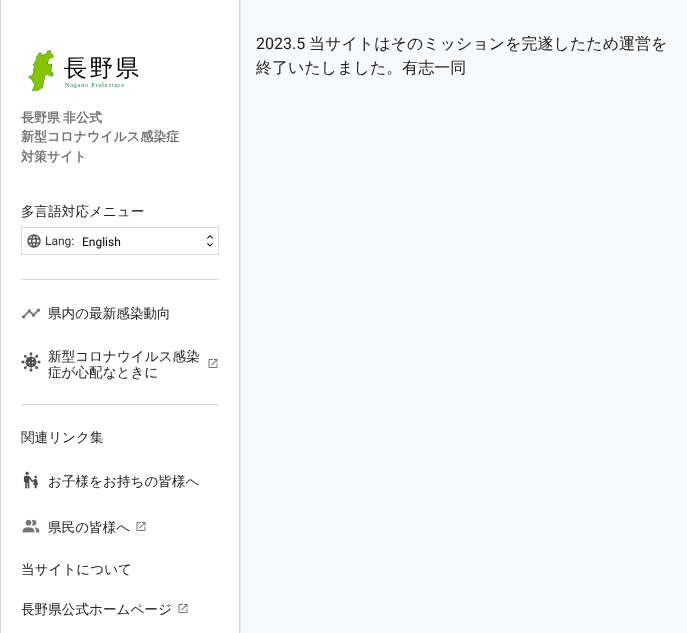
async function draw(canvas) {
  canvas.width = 687
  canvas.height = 633
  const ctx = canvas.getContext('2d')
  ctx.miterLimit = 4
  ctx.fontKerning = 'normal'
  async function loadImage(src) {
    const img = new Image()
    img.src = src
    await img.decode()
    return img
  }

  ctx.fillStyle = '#f8f9fa'
  ctx.fillRect(0, 0, 687, 633)
  ctx.font = '16px Roboto'
  ctx.fillStyle = '#202021'
  ctx.fillText('2023.5', 256, 49)
  ctx.font = '500 16px WenQuanYi Zen Hei'
  ctx.fillText('当サイトはそのミッションを完遂したため運営を', 309, 49)
  ctx.fillText('終了いたしました。有志一同', 256, 73)
  ctx.fillStyle = '#00000026'
  ctx.filter = 'blur(1px)'
  ctx.beginPath()
  ctx.rect(0, 0, 240, 633)
  ctx.fill()
  ctx.filter = 'none'
  ctx.fillStyle = '#fff'
  ctx.fillRect(1, 0, 238, 633)
  ctx.fillStyle = '#d9d9d9'
  ctx.fillRect(239, 0, 1, 633)
  ctx.fillRect(0, 0, 1, 633)
  ctx.drawImage(await loadImage('image0.png'), 28, 50, 111, 42)
  ctx.wordSpacing = '-1px'
  ctx.font = 'bold 13px WenQuanYi Zen Hei'
  ctx.fillStyle = '#707070'
  ctx.fillText('長野県 非公式', 21, 122)
  ctx.wordSpacing = '0px'
  ctx.fillText('新型コロナウイルス感染症', 21, 141)
  ctx.fillText('対策サイト', 21, 161)
  ctx.font = '500 13.6px WenQuanYi Zen Hei'
  ctx.fillStyle = '#202021'
  ctx.fillText('多言語対応メニュー', 21, 216)
  ctx.drawImage(await loadImage('image1.png'), 27, 234, 14, 14)
  ctx.font = '12px Roboto'
  ctx.fillStyle = '#333'
  ctx.fillText('Lang:', 45, 245)
  ctx.drawImage(await loadImage('image2.png'), 207, 235, 6, 12)
  ctx.strokeStyle = '#d9d9d9'
  ctx.strokeRect(21.5, 227.5, 197, 27)
  ctx.fillStyle = '#000'
  ctx.fillText('English', 82, 246)
  ctx.fillStyle = '#d9d9d9'
  ctx.fillRect(21, 279, 198, 1)
  ctx.drawImage(await loadImage('image3.png'), 21, 308, 20, 11)
  ctx.font = '500 13.6px WenQuanYi Zen Hei'
  ctx.fillStyle = '#202021'
  ctx.fillText('県内の最新感染動向', 48, 318)
  ctx.fillStyle = '#d9d9d9'
  ctx.fillRect(21, 404, 198, 1)
  ctx.drawImage(await loadImage('image4.png'), 21, 352, 20, 20)
  ctx.fillStyle = '#202021'
  ctx.fillText('新型コロナウイルス感染', 48, 361)
  ctx.fillText('症が心配なときに', 48, 377)
  ctx.drawImage(await loadImage('image5.png'), 208, 359, 10, 9)
  ctx.fillText('関連リンク集', 21, 442)
  ctx.drawImage(await loadImage('image6.png'), 23, 471, 15, 18)
  ctx.fillText('お子様をお持ちの皆様へ', 48, 486)
  ctx.drawImage(await loadImage('image7.png'), 22, 519, 18, 14)
  ctx.fillText('県民の皆様へ', 48, 532)
  ctx.drawImage(await loadImage('image5.png'), 136, 522, 10, 9)
  ctx.fillText('当サイトについて', 21, 574)
  ctx.fillText('長野県公式ホームページ', 21, 614)
  ctx.drawImage(await loadImage('image5.png'), 178, 604, 10, 9)
}

draw(document.querySelector('canvas'))
